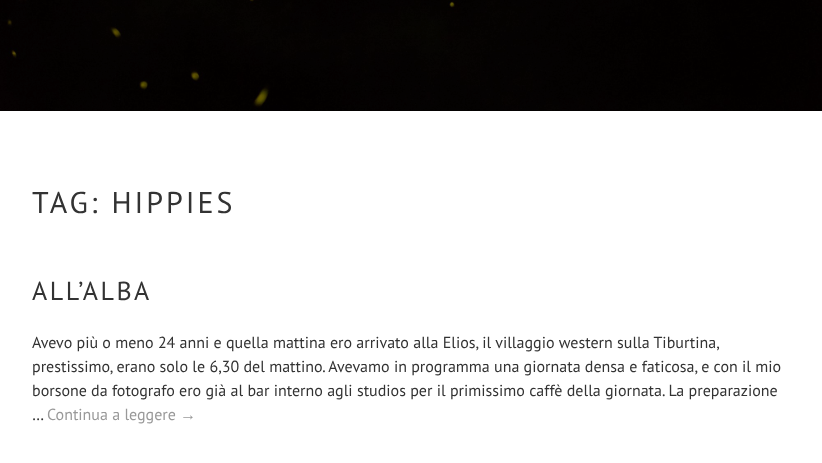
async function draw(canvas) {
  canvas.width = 822
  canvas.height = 463
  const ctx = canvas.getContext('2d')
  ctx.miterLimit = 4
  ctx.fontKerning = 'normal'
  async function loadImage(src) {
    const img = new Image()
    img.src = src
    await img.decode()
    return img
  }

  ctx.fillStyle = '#fff'
  ctx.fillRect(0, 0, 822, 463)
  ctx.drawImage(await loadImage('image0.png'), 0, 0, 822, 111)
  ctx.letterSpacing = '3px'
  ctx.font = '30px PT Sans'
  ctx.fillStyle = '#333'
  ctx.fillText('TAG: HIPPIES', 32, 213)
  ctx.letterSpacing = '2.5px'
  ctx.font = '26px PT Sans'
  ctx.fillText('ALL’ALBA', 32, 300)
  ctx.letterSpacing = '0px'
  ctx.font = '16px PT Sans'
  ctx.fillText('Avevo più o meno 24 anni e quella mattina ero arrivato alla Elios, il villaggio western sulla Tiburtina,', 32, 348)
  ctx.fillText('prestissimo, erano solo le 6,30 del mattino. Avevamo in programma una giornata densa e faticosa, e con il mio', 32, 372)
  ctx.fillText('borsone da fotografo ero già al bar interno agli studios per il primissimo caffè della giornata. La preparazione', 32, 396)
  ctx.fillText('…', 32, 420)
  ctx.fillStyle = '#999'
  ctx.fillText('Continua a leggere', 47, 420)
  ctx.font = '16px Liberation Sans'
  ctx.fillText('→', 180, 420)
}

draw(document.querySelector('canvas'))
